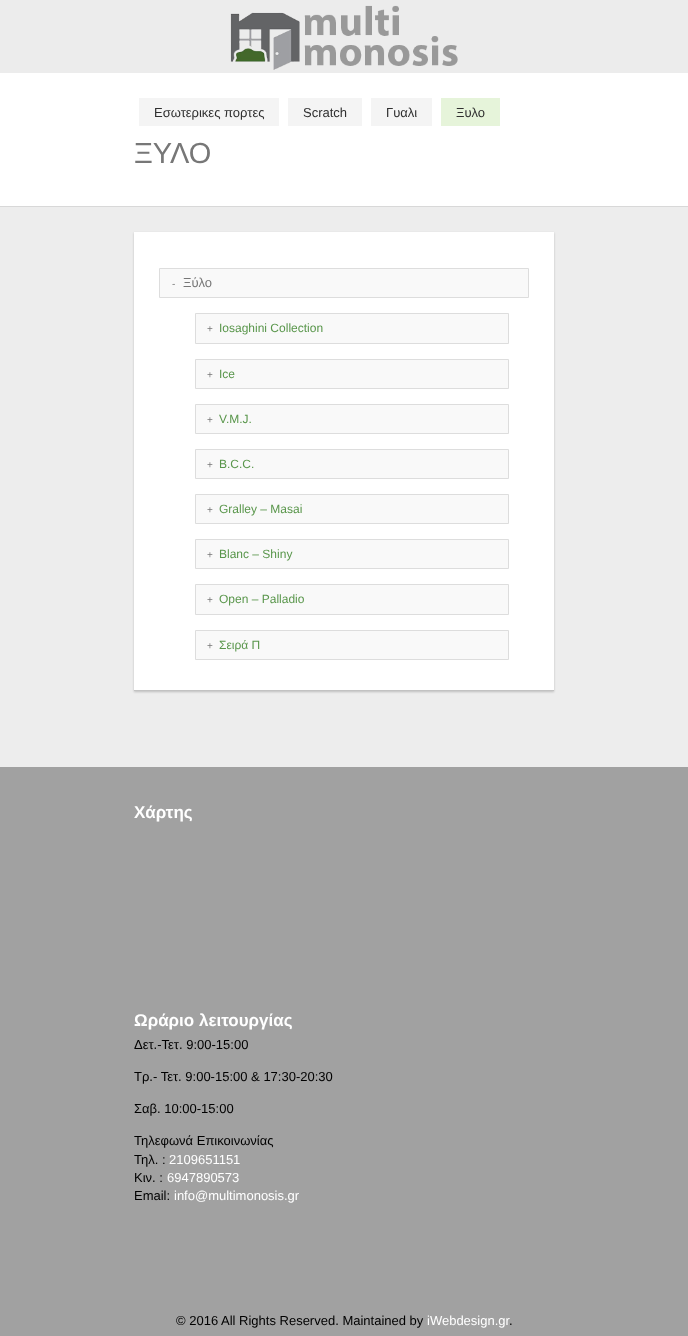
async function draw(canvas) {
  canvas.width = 688
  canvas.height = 1336
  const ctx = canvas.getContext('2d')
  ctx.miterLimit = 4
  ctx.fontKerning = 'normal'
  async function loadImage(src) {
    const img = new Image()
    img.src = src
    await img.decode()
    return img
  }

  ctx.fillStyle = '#a1a1a1'
  ctx.fillRect(0, 0, 688, 1336)
  ctx.fillStyle = '#ececec'
  ctx.fillRect(0, 0, 688, 73)
  ctx.drawImage(await loadImage('image0.png'), 230, 5, 228, 65)
  ctx.fillStyle = '#ededed'
  ctx.fillRect(0, 207, 688, 560)
  ctx.fillStyle = '#fff'
  ctx.fillRect(0, 73, 688, 133)
  ctx.fillStyle = '#d8d8d8'
  ctx.fillRect(0, 206, 688, 1)
  ctx.fillStyle = '#f4f4f4'
  ctx.fillRect(139, 98, 140, 28)
  ctx.font = '13px Liberation Sans'
  ctx.fillStyle = '#2f2f2f'
  ctx.fillText('Εσωτερικες πορτες', 154, 117)
  ctx.fillStyle = '#f4f4f4'
  ctx.fillRect(288, 98, 74, 28)
  ctx.fillStyle = '#2f2f2f'
  ctx.fillText('Scratch', 303, 117)
  ctx.fillStyle = '#f4f4f4'
  ctx.fillRect(371, 98, 61, 28)
  ctx.fillStyle = '#2f2f2f'
  ctx.fillText('Γυαλι', 386, 117)
  ctx.fillStyle = '#e6f4da'
  ctx.fillRect(441, 98, 59, 28)
  ctx.fillStyle = '#2f2f2f'
  ctx.fillText('Ξυλο', 456, 117)
  ctx.font = '29px Liberation Sans'
  ctx.fillStyle = '#777'
  ctx.fillText('ΞΥΛΟ', 134, 163)
  ctx.fillStyle = '#00000033'
  ctx.filter = 'blur(1px)'
  ctx.beginPath()
  ctx.rect(134, 233, 420, 459)
  ctx.fill()
  ctx.filter = 'none'
  ctx.fillStyle = '#fff'
  ctx.fillRect(134, 232, 420, 458)
  ctx.fillStyle = '#c2c2c2'
  ctx.fillRect(134, 690, 420, 1)
  ctx.fillStyle = '#f9f9f9'
  ctx.beginPath()
  ctx.rect(159.5, 268.5, 369, 29)
  ctx.fill()
  ctx.strokeStyle = '#ddd'
  ctx.stroke()
  ctx.font = '10px Liberation Sans'
  ctx.fillStyle = '#777'
  ctx.fillText('-', 172, 287)
  ctx.font = '13px Liberation Sans'
  ctx.fillText('Ξύλο', 183, 287)
  ctx.fillStyle = '#f9f9f9'
  ctx.beginPath()
  ctx.rect(195.5, 313.5, 313, 30)
  ctx.fill()
  ctx.stroke()
  ctx.font = '10px Liberation Sans'
  ctx.fillStyle = '#777'
  ctx.fillText('+', 207, 332)
  ctx.font = '12px Liberation Sans'
  ctx.fillStyle = '#59964b'
  ctx.fillText('Iosaghini Collection', 219, 332)
  ctx.fillStyle = '#f9f9f9'
  ctx.beginPath()
  ctx.rect(195.5, 359.5, 313, 29)
  ctx.fill()
  ctx.stroke()
  ctx.font = '10px Liberation Sans'
  ctx.fillStyle = '#777'
  ctx.fillText('+', 207, 378)
  ctx.font = '12px Liberation Sans'
  ctx.fillStyle = '#59964b'
  ctx.fillText('Ice', 219, 378)
  ctx.fillStyle = '#f9f9f9'
  ctx.beginPath()
  ctx.rect(195.5, 404.5, 313, 29)
  ctx.fill()
  ctx.stroke()
  ctx.font = '10px Liberation Sans'
  ctx.fillStyle = '#777'
  ctx.fillText('+', 207, 423)
  ctx.font = '12px Liberation Sans'
  ctx.fillStyle = '#59964b'
  ctx.fillText('V.M.J.', 219, 423)
  ctx.fillStyle = '#f9f9f9'
  ctx.beginPath()
  ctx.rect(195.5, 449.5, 313, 29)
  ctx.fill()
  ctx.stroke()
  ctx.font = '10px Liberation Sans'
  ctx.fillStyle = '#777'
  ctx.fillText('+', 207, 468)
  ctx.font = '12px Liberation Sans'
  ctx.fillStyle = '#59964b'
  ctx.fillText('B.C.C.', 219, 468)
  ctx.fillStyle = '#f9f9f9'
  ctx.beginPath()
  ctx.rect(195.5, 494.5, 313, 29)
  ctx.fill()
  ctx.stroke()
  ctx.font = '10px Liberation Sans'
  ctx.fillStyle = '#777'
  ctx.fillText('+', 207, 513)
  ctx.font = '12px Liberation Sans'
  ctx.fillStyle = '#59964b'
  ctx.fillText('Gralley – Masai', 219, 513)
  ctx.fillStyle = '#f9f9f9'
  ctx.beginPath()
  ctx.rect(195.5, 539.5, 313, 29)
  ctx.fill()
  ctx.stroke()
  ctx.font = '10px Liberation Sans'
  ctx.fillStyle = '#777'
  ctx.fillText('+', 207, 558)
  ctx.font = '12px Liberation Sans'
  ctx.fillStyle = '#59964b'
  ctx.fillText('Blanc – Shiny', 219, 558)
  ctx.fillStyle = '#f9f9f9'
  ctx.beginPath()
  ctx.rect(195.5, 584.5, 313, 30)
  ctx.fill()
  ctx.stroke()
  ctx.font = '10px Liberation Sans'
  ctx.fillStyle = '#777'
  ctx.fillText('+', 207, 603)
  ctx.font = '12px Liberation Sans'
  ctx.fillStyle = '#59964b'
  ctx.fillText('Open – Palladio', 219, 603)
  ctx.fillStyle = '#f9f9f9'
  ctx.beginPath()
  ctx.rect(195.5, 630.5, 313, 29)
  ctx.fill()
  ctx.stroke()
  ctx.font = '10px Liberation Sans'
  ctx.fillStyle = '#777'
  ctx.fillText('+', 207, 649)
  ctx.font = '12px Liberation Sans'
  ctx.fillStyle = '#59964b'
  ctx.fillText('Σειρά Π', 219, 649)
  ctx.font = 'bold 17px Liberation Sans'
  ctx.fillStyle = '#fff'
  ctx.fillText('Χάρτης', 134, 818)
  ctx.fillText('Ωράριο λειτουργίας', 134, 1026)
  ctx.font = '13px Liberation Sans'
  ctx.fillStyle = '#000'
  ctx.fillText('Δετ.-Τετ. 9:00-15:00', 134, 1049)
  ctx.fillText('Τρ.- Τετ. 9:00-15:00 & 17:30-20:30', 134, 1081)
  ctx.fillText('Σαβ. 10:00-15:00', 134, 1113)
  ctx.fillText('Τηλεφωνά Επικοινωνίας', 134, 1145)
  ctx.fillText('Τηλ. :', 134, 1164)
  ctx.fillStyle = '#fff'
  ctx.fillText('2109651151', 169, 1164)
  ctx.fillStyle = '#000'
  ctx.fillText('Κιν. :', 134, 1182)
  ctx.fillStyle = '#fff'
  ctx.fillText('6947890573', 167, 1182)
  ctx.fillStyle = '#000'
  ctx.fillText('Email:', 134, 1200)
  ctx.fillStyle = '#fff'
  ctx.fillText('info@multimonosis.gr', 174, 1200)
  ctx.fillStyle = '#000'
  ctx.fillText('© 2016 All Rights Reserved. Maintained by', 176, 1325)
  ctx.fillStyle = '#fff'
  ctx.fillText('iWebdesign.gr', 427, 1325)
  ctx.fillStyle = '#000'
  ctx.fillText('.', 509, 1325)
}

draw(document.querySelector('canvas'))
